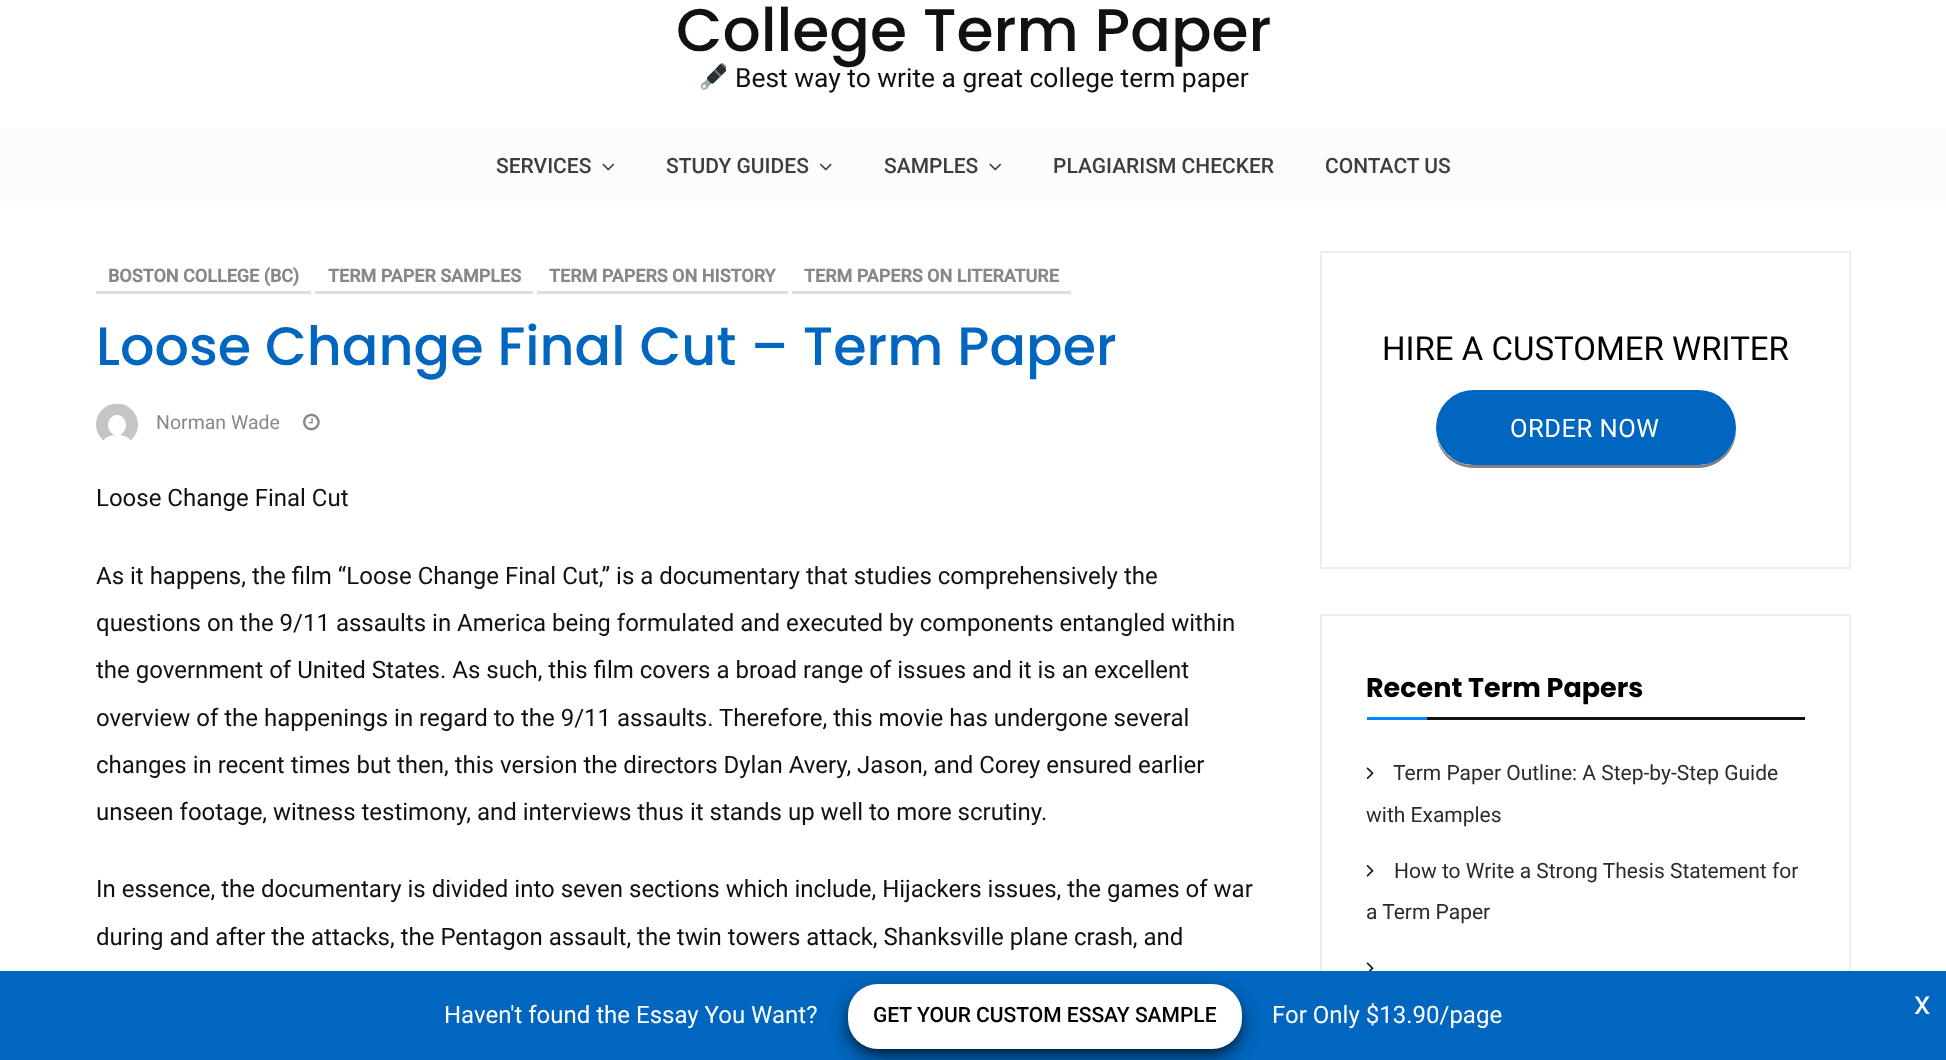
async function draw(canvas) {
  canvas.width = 1946
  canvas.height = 1060
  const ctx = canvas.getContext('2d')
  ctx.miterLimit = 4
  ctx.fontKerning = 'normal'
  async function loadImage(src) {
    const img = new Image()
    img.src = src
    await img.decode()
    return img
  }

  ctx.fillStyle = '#fff'
  ctx.fillRect(0, 0, 1946, 1060)
  ctx.font = '500 60px Poppins'
  ctx.fillStyle = '#111'
  ctx.fillText('College Term Paper', 676, 51)
  ctx.drawImage(await loadImage('image0.png'), 701, 63, 25, 27)
  ctx.font = '26.4px Roboto'
  ctx.fillText('Best way to write a great college term paper', 735, 87)
  ctx.fillStyle = '#fcfcfc'
  ctx.fillRect(0, 128, 1946, 78)
  ctx.font = '500 21px Roboto'
  ctx.fillStyle = '#3d3d3d'
  ctx.fillText('SERVICES', 496, 173)
  ctx.drawImage(await loadImage('image1.png'), 602, 163, 13, 8)
  ctx.fillText('STUDY GUIDES', 666, 173)
  ctx.drawImage(await loadImage('image2.png'), 819, 163, 13, 8)
  ctx.fillText('SAMPLES', 884, 173)
  ctx.drawImage(await loadImage('image1.png'), 989, 163, 13, 8)
  ctx.fillText('PLAGIARISM CHECKER', 1053, 173)
  ctx.fillText('CONTACT US', 1325, 173)
  ctx.fillStyle = '#ddd'
  ctx.fillRect(96, 291, 215, 3)
  ctx.font = 'bold 18px Roboto'
  ctx.fillStyle = '#888'
  ctx.fillText('BOSTON COLLEGE (BC)', 108, 282)
  ctx.fillStyle = '#ddd'
  ctx.fillRect(315, 291, 218, 3)
  ctx.fillStyle = '#888'
  ctx.fillText('TERM PAPER SAMPLES', 328, 282)
  ctx.fillStyle = '#ddd'
  ctx.fillRect(537, 291, 251, 3)
  ctx.fillStyle = '#888'
  ctx.fillText('TERM PAPERS ON HISTORY', 549, 282)
  ctx.fillStyle = '#ddd'
  ctx.fillRect(792, 291, 279, 3)
  ctx.fillStyle = '#888'
  ctx.fillText('TERM PAPERS ON LITERATURE', 804, 282)
  ctx.font = '500 54px Poppins'
  ctx.fillStyle = '#0066bf'
  ctx.fillText('Loose Change Final Cut – Term Paper', 96, 365)
  ctx.drawImage(await loadImage('image3.png'), 96, 403, 42, 38)
  ctx.font = '19.5px Roboto'
  ctx.fillStyle = '#888'
  ctx.fillText('Norman Wade', 156, 429)
  ctx.drawImage(await loadImage('image4.png'), 303, 413, 17, 18)
  ctx.font = '24px Roboto'
  ctx.fillStyle = '#111'
  ctx.fillText('Loose Change Final Cut', 96, 506)
  ctx.fillText('As it happens, the film “Loose Change Final Cut,” is a documentary that studies comprehensively the', 96, 584)
  ctx.fillText('questions on the 9/11 assaults in America being formulated and executed by components entangled within', 96, 631)
  ctx.fillText('the government of United States. As such, this film covers a broad range of issues and it is an excellent', 96, 678)
  ctx.fillText('overview of the happenings in regard to the 9/11 assaults. Therefore, this movie has undergone several', 96, 726)
  ctx.fillText('changes in recent times but then, this version the directors Dylan Avery, Jason, and Corey ensured earlier', 96, 773)
  ctx.fillText('unseen footage, witness testimony, and interviews thus it stands up well to more scrutiny.', 96, 820)
  ctx.fillText('In essence, the documentary is divided into seven sections which include, Hijackers issues, the games of war', 96, 897)
  ctx.fillText('during and after the attacks, the Pentagon assault, the twin towers attack, Shanksville plane crash, and', 96, 945)
  ctx.strokeStyle = '#ededed'
  ctx.lineWidth = 2
  ctx.strokeRect(1321, 252, 529, 316)
  ctx.font = '33px Roboto'
  ctx.fillStyle = '#000'
  ctx.fillText('HIRE A CUSTOMER WRITER', 1382, 360)
  ctx.fillStyle = '#878080'
  ctx.beginPath()
  ctx.moveTo(1436, 435)
  ctx.bezierCurveTo(1439, 454, 1454, 468, 1474, 468)
  ctx.lineTo(1698, 468)
  ctx.bezierCurveTo(1719, 468, 1736, 451, 1736, 430)
  ctx.lineTo(1735, 423)
  ctx.lineTo(1736, 428)
  ctx.bezierCurveTo(1736, 448, 1719, 465, 1698, 465)
  ctx.lineTo(1473, 465)
  ctx.bezierCurveTo(1455, 465, 1440, 452, 1436, 435)
  ctx.closePath()
  ctx.fill()
  ctx.fillStyle = '#0066bf'
  ctx.beginPath()
  ctx.roundRect(1436, 390, 300, 75, 37.5)
  ctx.fill()
  ctx.letterSpacing = '0.5px'
  ctx.font = '25.5px Roboto'
  ctx.fillStyle = '#fff'
  ctx.fillText('ORDER NOW', 1510, 437)
  ctx.strokeRect(1321, 615, 529, 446)
  ctx.fillStyle = '#111'
  ctx.fillRect(1427, 717, 378, 3)
  ctx.letterSpacing = '0px'
  ctx.font = 'bold 27px Poppins'
  ctx.fillStyle = '#000'
  ctx.fillText('Recent Term Papers', 1366, 697)
  ctx.fillStyle = '#08f'
  ctx.fillRect(1367, 717, 60, 3)
  ctx.drawImage(await loadImage('image5.png'), 1366, 767, 8, 12)
  ctx.font = '21px Roboto'
  ctx.fillStyle = '#2b2b2b'
  ctx.fillText('Term Paper Outline: A Step-by-Step Guide', 1393, 780)
  ctx.fillText('with Examples', 1366, 822)
  ctx.drawImage(await loadImage('image6.png'), 1366, 865, 8, 12)
  ctx.fillText('How to Write a Strong Thesis Statement for', 1394, 878)
  ctx.fillText('a Term Paper', 1366, 919)
  ctx.drawImage(await loadImage('image7.png'), 1366, 962, 8, 9)
  ctx.fillStyle = '#0066bf'
  ctx.fillRect(0, 971, 1946, 89)
  ctx.font = '24px Roboto'
  ctx.fillStyle = '#fff'
  ctx.fillText('Haven\'t found the Essay You Want?', 444, 1023)
  ctx.fillStyle = '#000'
  ctx.filter = 'blur(10px)'
  ctx.beginPath()
  ctx.roundRect(852, 996, 386, 56, 26)
  ctx.fill()
  ctx.filter = 'none'
  ctx.fillStyle = '#fff'
  ctx.beginPath()
  ctx.roundRect(848, 984, 394, 65, 30)
  ctx.fill()
  ctx.font = '500 21px Roboto'
  ctx.fillStyle = '#000'
  ctx.fillText('GET YOUR CUSTOM ESSAY SAMPLE', 873, 1022)
  ctx.font = '24px Roboto'
  ctx.fillStyle = '#fff'
  ctx.fillText('For Only $13.90/page', 1272, 1023)
  ctx.font = '33px Roboto'
  ctx.fillText('x', 1914, 1014)
}

draw(document.querySelector('canvas'))
